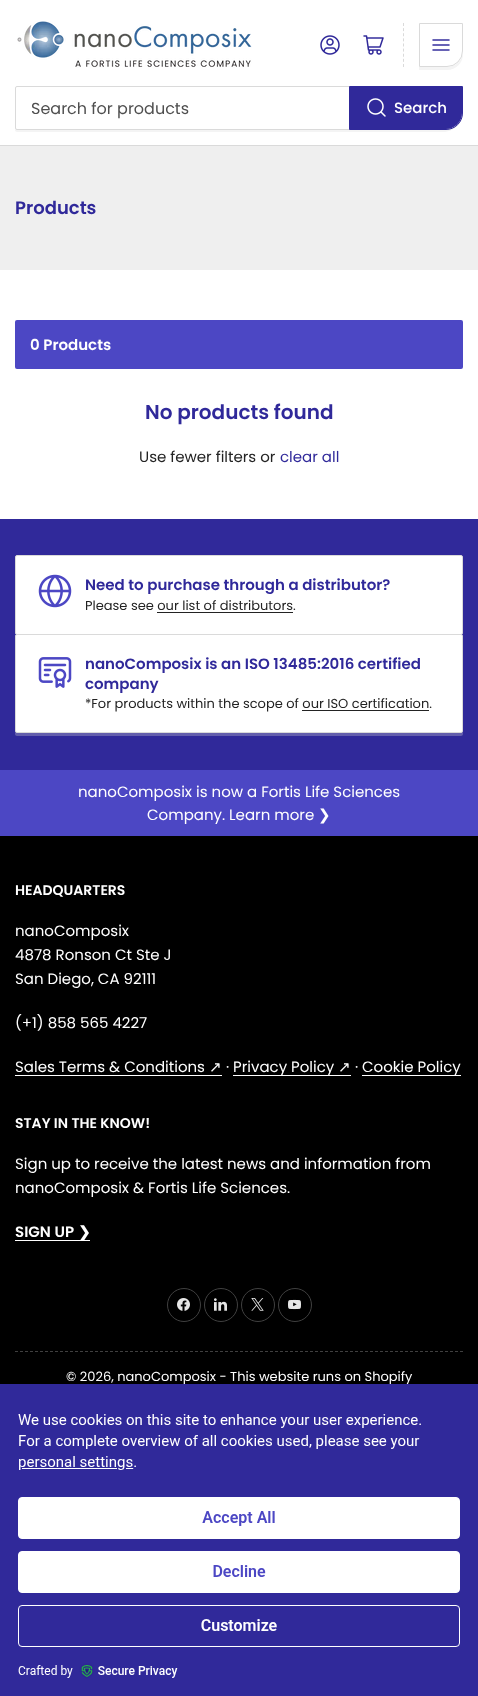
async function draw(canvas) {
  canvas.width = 478
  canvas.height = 1696
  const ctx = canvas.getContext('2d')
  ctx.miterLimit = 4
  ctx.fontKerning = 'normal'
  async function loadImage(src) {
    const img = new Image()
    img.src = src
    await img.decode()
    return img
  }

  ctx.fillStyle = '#fff'
  ctx.fillRect(0, 0, 478, 1696)
  ctx.fillStyle = '#dadada'
  ctx.fillRect(0, 145, 478, 1)
  ctx.drawImage(await loadImage('image0.png'), 17, 21, 235, 47)
  ctx.drawImage(await loadImage('image1.png'), 320, 35, 20, 20)
  ctx.drawImage(await loadImage('image2.png'), 363, 35, 21, 20)
  ctx.beginPath()
  ctx.moveTo(403.5, 23)
  ctx.lineTo(403.5, 67)
  ctx.strokeStyle = '#dadada'
  ctx.setLineDash([3, 2.12])
  ctx.stroke()
  ctx.fillStyle = '#f4f4f4'
  ctx.beginPath()
  ctx.moveTo(419, 67)
  ctx.lineTo(419, 70)
  ctx.lineTo(447, 70)
  ctx.bezierCurveTo(456, 70, 463, 63, 463, 54)
  ctx.lineTo(463, 51)
  ctx.bezierCurveTo(463, 60, 456, 67, 447, 67)
  ctx.closePath()
  ctx.fill()
  ctx.beginPath()
  ctx.roundRect(419.5, 23.5, 43, 43, [0, 0, 15.5, 0])
  ctx.setLineDash([])
  ctx.stroke()
  ctx.drawImage(await loadImage('image3.png'), 432, 39, 18, 12)
  ctx.beginPath()
  ctx.moveTo(15, 128)
  ctx.lineTo(15, 130)
  ctx.bezierCurveTo(15, 131, 16, 132, 17, 132)
  ctx.lineTo(443, 132)
  ctx.bezierCurveTo(454, 132, 463, 123, 463, 112)
  ctx.lineTo(463, 110)
  ctx.bezierCurveTo(463, 121, 454, 130, 443, 130)
  ctx.lineTo(17, 130)
  ctx.bezierCurveTo(16, 130, 15, 129, 15, 128)
  ctx.closePath()
  ctx.fill()
  ctx.fillStyle = '#fff'
  ctx.beginPath()
  ctx.roundRect(15.5, 86.5, 447, 43, [1.5, 1.5, 19.5, 1.5])
  ctx.fill()
  ctx.stroke()
  ctx.font = '16px Poppins'
  ctx.fillStyle = '#4f4f4f'
  ctx.fillText('Search for products', 31, 114)
  ctx.beginPath()
  ctx.roundRect(349.5, 86.5, 113, 43, [0, 0, 16.5, 0])
  ctx.strokeStyle = '#30299a'
  ctx.stroke()
  ctx.fillStyle = '#30299a'
  ctx.beginPath()
  ctx.roundRect(350, 87, 112, 42, [0, 0, 16, 0])
  ctx.fill()
  ctx.drawImage(await loadImage('image4.png'), 367, 98, 19, 19)
  ctx.font = '500 15px Poppins'
  ctx.fillStyle = '#fff'
  ctx.fillText('Search', 394, 113)
  ctx.fillStyle = '#efefef'
  ctx.fillRect(0, 146, 478, 124)
  ctx.font = '600 18px Poppins'
  ctx.fillStyle = '#30299a'
  ctx.fillText('Products', 15, 214)
  ctx.fillStyle = '#4c47c4'
  ctx.beginPath()
  ctx.roundRect(15, 320, 448, 49, 2)
  ctx.fill()
  ctx.font = '600 15px Poppins'
  ctx.fillStyle = '#fff'
  ctx.fillText('0 Products', 30, 350)
  ctx.font = '600 20px Poppins'
  ctx.fillStyle = '#30299a'
  ctx.fillText('No products found', 145, 419)
  ctx.font = '15px Poppins'
  ctx.fillStyle = '#232323'
  ctx.fillText('Use fewer filters or', 139, 462)
  ctx.fillStyle = '#30299a'
  ctx.fillText('clear all', 280, 462)
  ctx.fillRect(0, 519, 478, 251)
  ctx.fillStyle = '#fff'
  ctx.beginPath()
  ctx.roundRect(15.5, 555.5, 447, 79, 1.5)
  ctx.fill()
  ctx.strokeStyle = '#dadada'
  ctx.stroke()
  ctx.drawImage(await loadImage('image5.png'), 38, 574, 34, 34)
  ctx.font = '600 15px Poppins'
  ctx.fillStyle = '#30299a'
  ctx.fillText('Need to purchase through a distributor?', 85, 590)
  ctx.font = '13px Poppins'
  ctx.fillStyle = '#232323'
  ctx.fillText('Please see our list of distributors.', 85, 610)
  ctx.fillRect(157, 612, 136, 1)
  ctx.fillStyle = '#635ead'
  ctx.beginPath()
  ctx.moveTo(15, 731)
  ctx.lineTo(15, 734)
  ctx.bezierCurveTo(15, 735, 16, 736, 17, 736)
  ctx.lineTo(461, 736)
  ctx.bezierCurveTo(462, 736, 463, 735, 463, 734)
  ctx.lineTo(463, 731)
  ctx.bezierCurveTo(463, 732, 462, 733, 461, 733)
  ctx.lineTo(17, 733)
  ctx.bezierCurveTo(16, 733, 15, 732, 15, 731)
  ctx.closePath()
  ctx.fill()
  ctx.fillStyle = '#fff'
  ctx.beginPath()
  ctx.roundRect(15.5, 634.5, 447, 98, 1.5)
  ctx.fill()
  ctx.stroke()
  ctx.drawImage(await loadImage('image6.png'), 38, 657, 34, 31)
  ctx.font = '600 15px Poppins'
  ctx.fillStyle = '#30299a'
  ctx.fillText('nanoComposix is an ISO 13485:2016 certified', 85, 669)
  ctx.fillText('company', 85, 689)
  ctx.font = '13px Poppins'
  ctx.fillStyle = '#232323'
  ctx.fillText('*For products within the scope of our ISO certification.', 85, 708)
  ctx.fillRect(302, 710, 127, 1)
  ctx.fillStyle = '#4c47c4'
  ctx.fillRect(0, 770, 478, 66)
  ctx.font = '15px Poppins'
  ctx.fillStyle = '#fff'
  ctx.fillText('nanoComposix is now a Fortis Life Sciences', 78, 797)
  ctx.fillText('Company. Learn more', 147, 820)
  ctx.font = '15px DejaVu Sans'
  ctx.fillText('❯', 318, 820)
  ctx.fillStyle = '#000'
  ctx.fillRect(0, 836, 478, 548)
  ctx.font = '600 14px Poppins'
  ctx.fillStyle = '#fff'
  ctx.fillText('HEADQUARTERS', 15, 895)
  ctx.font = '15px Poppins'
  ctx.fillText('nanoComposix', 15, 936)
  ctx.fillText('4878 Ronson Ct Ste J', 15, 960)
  ctx.fillText('San Diego, CA 92111', 15, 984)
  ctx.fillText('(+1) 858 565 4227', 15, 1028)
  ctx.fillText('Sales Terms & Conditions', 15, 1072)
  ctx.font = '15px DejaVu Sans'
  ctx.fillText('↗', 209, 1072)
  ctx.fillRect(15, 1075, 207, 1)
  ctx.font = '15px Poppins'
  ctx.fillText('·', 226, 1072)
  ctx.fillRect(233, 1075, 118, 1)
  ctx.fillText('Privacy Policy', 233, 1072)
  ctx.font = '15px DejaVu Sans'
  ctx.fillText('↗', 338, 1072)
  ctx.font = '15px Poppins'
  ctx.fillText('·', 355, 1072)
  ctx.fillRect(362, 1075, 99, 1)
  ctx.fillText('Cookie Policy', 362, 1072)
  ctx.font = '600 14px Poppins'
  ctx.fillText('STAY IN THE KNOW!', 15, 1128)
  ctx.font = '15px Poppins'
  ctx.fillText('Sign up to receive the latest news and information from', 15, 1169)
  ctx.fillText('nanoComposix & Fortis Life Sciences.', 15, 1193)
  ctx.font = '600 15px Poppins'
  ctx.fillText('SIGN UP', 15, 1237)
  ctx.fillRect(15, 1240, 75, 1)
  ctx.font = 'bold 15px DejaVu Sans'
  ctx.fillText('❯', 78, 1237)
  ctx.beginPath()
  ctx.arc(184, 1305, 16.5, 0, 2 * Math.PI)
  ctx.strokeStyle = '#404040'
  ctx.stroke()
  ctx.drawImage(await loadImage('image7.png'), 177, 1298, 13, 13)
  ctx.beginPath()
  ctx.arc(221, 1305, 16.5, 0, 2 * Math.PI)
  ctx.stroke()
  ctx.drawImage(await loadImage('image8.png'), 214, 1298, 13, 13)
  ctx.beginPath()
  ctx.arc(258, 1305, 16.5, 0, 2 * Math.PI)
  ctx.stroke()
  ctx.drawImage(await loadImage('image9.png'), 251, 1298, 13, 13)
  ctx.beginPath()
  ctx.arc(295, 1305, 16.5, 0, 2 * Math.PI)
  ctx.stroke()
  ctx.drawImage(await loadImage('image10.png'), 288, 1299, 13, 11)
  ctx.beginPath()
  ctx.moveTo(15, 1351.5)
  ctx.lineTo(463, 1351.5)
  ctx.setLineDash([3, 2])
  ctx.stroke()
  ctx.font = '13px Poppins'
  ctx.fillText('© 2026, nanoComposix - This website runs on Shopify', 66, 1381)
  ctx.drawImage(await loadImage('image11.png'), 0, 1384, 478, 312)
}

draw(document.querySelector('canvas'))
